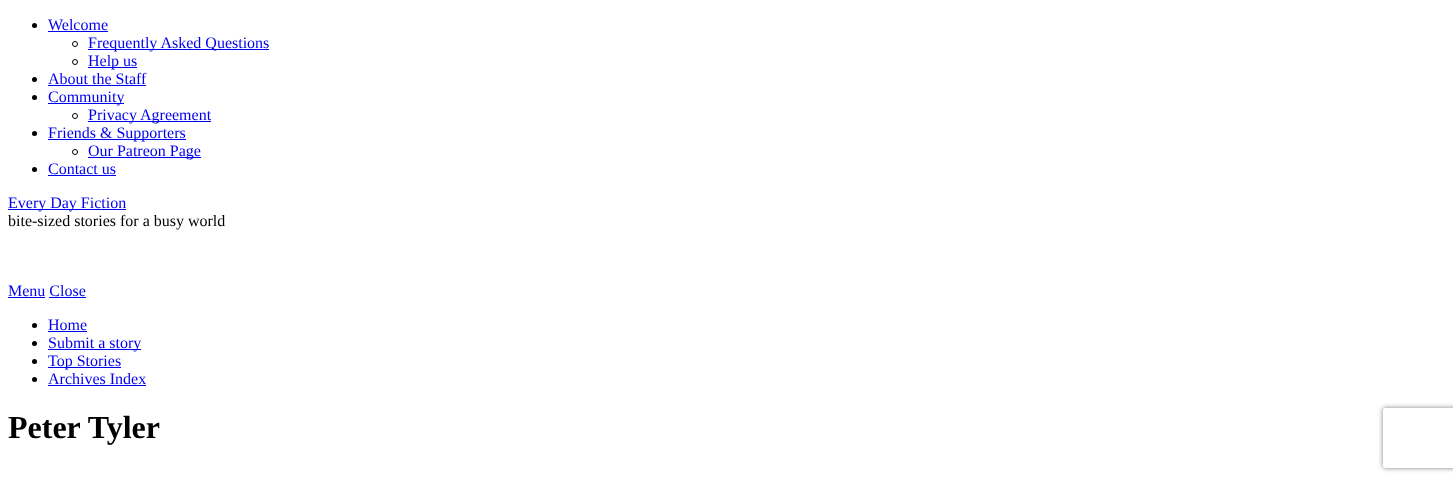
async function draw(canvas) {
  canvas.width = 1453
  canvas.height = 482
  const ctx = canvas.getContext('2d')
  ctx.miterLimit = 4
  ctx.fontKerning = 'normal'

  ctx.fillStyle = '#fff'
  ctx.fillRect(0, 0, 1453, 482)
  ctx.fillStyle = '#000'
  ctx.beginPath()
  ctx.arc(34.5, 25.5, 2.5, 0, 2 * Math.PI)
  ctx.fill()
  ctx.font = '16px Liberation Serif'
  ctx.fillStyle = '#00e'
  ctx.fillText('Welcome', 48, 30)
  ctx.fillRect(48, 31, 60, 1)
  ctx.beginPath()
  ctx.arc(75, 44, 2.5, 0, 2 * Math.PI)
  ctx.strokeStyle = '#000'
  ctx.stroke()
  ctx.fillRect(88, 49, 181, 1)
  ctx.fillText('Frequently Asked Questions', 88, 48)
  ctx.beginPath()
  ctx.arc(75, 62, 2.5, 0, 2 * Math.PI)
  ctx.stroke()
  ctx.fillRect(88, 67, 49, 1)
  ctx.fillText('Help us', 88, 66)
  ctx.fillStyle = '#000'
  ctx.beginPath()
  ctx.arc(34.5, 79.5, 2.5, 0, 2 * Math.PI)
  ctx.fill()
  ctx.fillStyle = '#00e'
  ctx.fillText('About the Staff', 48, 84)
  ctx.fillRect(48, 85, 98, 1)
  ctx.fillStyle = '#000'
  ctx.beginPath()
  ctx.arc(34.5, 97.5, 2.5, 0, 2 * Math.PI)
  ctx.fill()
  ctx.fillStyle = '#00e'
  ctx.fillRect(48, 103, 76, 1)
  ctx.fillText('Community', 48, 102)
  ctx.beginPath()
  ctx.arc(75, 116, 2.5, 0, 2 * Math.PI)
  ctx.stroke()
  ctx.fillRect(88, 121, 123, 1)
  ctx.fillText('Privacy Agreement', 88, 120)
  ctx.fillStyle = '#000'
  ctx.beginPath()
  ctx.arc(34.5, 133.5, 2.5, 0, 2 * Math.PI)
  ctx.fill()
  ctx.fillStyle = '#00e'
  ctx.fillRect(48, 139, 138, 1)
  ctx.fillText('Friends & Supporters', 48, 138)
  ctx.beginPath()
  ctx.arc(75, 152, 2.5, 0, 2 * Math.PI)
  ctx.stroke()
  ctx.fillRect(88, 157, 113, 1)
  ctx.fillText('Our Patreon Page', 88, 156)
  ctx.fillStyle = '#000'
  ctx.beginPath()
  ctx.arc(34.5, 169.5, 2.5, 0, 2 * Math.PI)
  ctx.fill()
  ctx.fillStyle = '#00e'
  ctx.fillText('Contact us', 48, 174)
  ctx.fillRect(48, 175, 68, 1)
  ctx.fillRect(8, 209, 118, 1)
  ctx.fillText('Every Day Fiction', 8, 208)
  ctx.fillStyle = '#000'
  ctx.fillText('bite-sized stories for a busy world', 8, 226)
  ctx.fillStyle = '#00e'
  ctx.fillText('Menu Close', 8, 296)
  ctx.fillRect(8, 297, 37, 1)
  ctx.fillRect(49, 297, 37, 1)
  ctx.fillStyle = '#000'
  ctx.beginPath()
  ctx.arc(34.5, 325.5, 2.5, 0, 2 * Math.PI)
  ctx.fill()
  ctx.fillStyle = '#00e'
  ctx.fillText('Home', 48, 330)
  ctx.fillRect(48, 331, 39, 1)
  ctx.fillStyle = '#000'
  ctx.beginPath()
  ctx.arc(34.5, 343.5, 2.5, 0, 2 * Math.PI)
  ctx.fill()
  ctx.fillStyle = '#00e'
  ctx.fillRect(48, 349, 93, 1)
  ctx.fillText('Submit a story', 48, 348)
  ctx.fillStyle = '#000'
  ctx.beginPath()
  ctx.arc(34.5, 361.5, 2.5, 0, 2 * Math.PI)
  ctx.fill()
  ctx.fillStyle = '#00e'
  ctx.fillRect(48, 367, 73, 1)
  ctx.fillText('Top Stories', 48, 366)
  ctx.fillStyle = '#000'
  ctx.beginPath()
  ctx.arc(34.5, 379.5, 2.5, 0, 2 * Math.PI)
  ctx.fill()
  ctx.fillStyle = '#00e'
  ctx.fillText('Archives Index', 48, 384)
  ctx.fillRect(48, 385, 98, 1)
  ctx.font = 'bold 32px Liberation Serif'
  ctx.fillStyle = '#000'
  ctx.fillText('Peter Tyler', 8, 438)
  ctx.save()
  ctx.beginPath()
  ctx.moveTo(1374, 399)
  ctx.lineTo(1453, 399)
  ctx.lineTo(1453, 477)
  ctx.lineTo(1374, 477)
  ctx.closePath()
  ctx.moveTo(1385, 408)
  ctx.lineTo(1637, 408)
  ctx.bezierCurveTo(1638, 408, 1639, 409, 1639, 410)
  ctx.lineTo(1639, 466)
  ctx.bezierCurveTo(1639, 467, 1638, 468, 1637, 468)
  ctx.lineTo(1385, 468)
  ctx.bezierCurveTo(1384, 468, 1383, 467, 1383, 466)
  ctx.lineTo(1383, 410)
  ctx.bezierCurveTo(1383, 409, 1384, 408, 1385, 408)
  ctx.closePath()
  ctx.clip('evenodd')
  ctx.fillStyle = '#808080'
  ctx.filter = 'blur(2.5px)'
  ctx.beginPath()
  ctx.roundRect(1383, 408, 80, 60, 2)
  ctx.fill()
  ctx.filter = 'none'
  ctx.restore()
}

draw(document.querySelector('canvas'))
